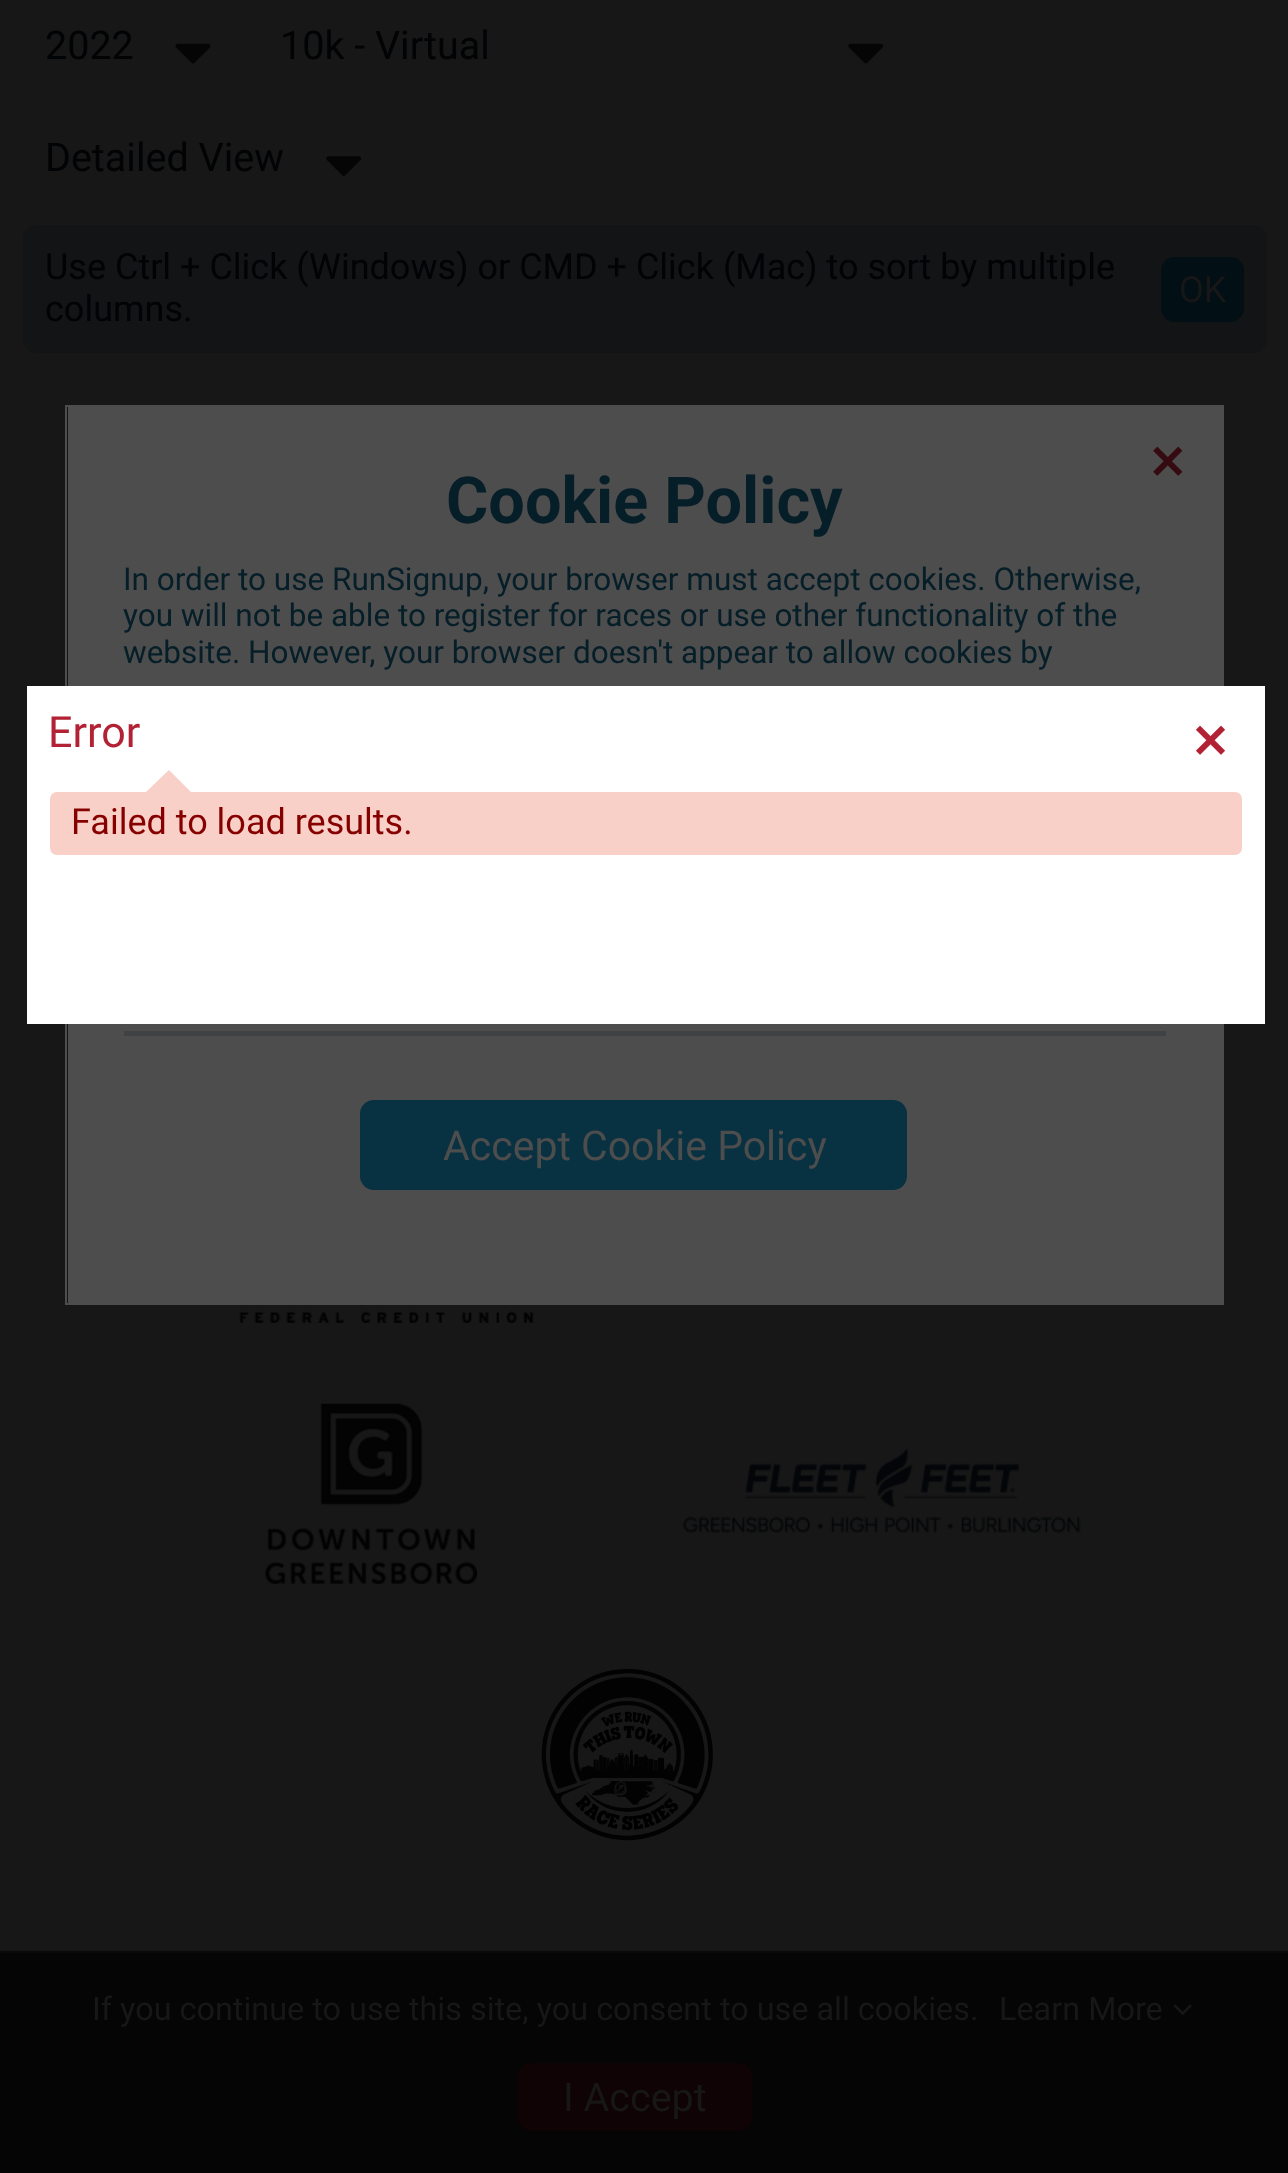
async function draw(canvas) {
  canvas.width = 1288
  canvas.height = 2173
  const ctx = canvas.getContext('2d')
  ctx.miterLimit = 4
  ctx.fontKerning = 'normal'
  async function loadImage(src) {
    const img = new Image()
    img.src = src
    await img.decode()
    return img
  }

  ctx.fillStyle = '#171717'
  ctx.fillRect(0, 0, 1288, 2173)
  ctx.font = '39.5px Roboto'
  ctx.fillStyle = '#010305'
  ctx.fillText('2022', 45, 59)
  ctx.drawImage(await loadImage('image0.png'), 175, 43, 36, 21)
  ctx.fillText('10k - Virtual', 280, 59)
  ctx.drawImage(await loadImage('image1.png'), 848, 43, 36, 21)
  ctx.fillText('Detailed View', 45, 171)
  ctx.drawImage(await loadImage('image2.png'), 326, 156, 36, 20)
  ctx.fillStyle = '#121416'
  ctx.beginPath()
  ctx.roundRect(23, 225, 1244, 128, 14)
  ctx.fill()
  ctx.font = '36px Roboto'
  ctx.fillStyle = '#010305'
  ctx.fillText('Use Ctrl + Click (Windows) or CMD + Click (Mac) to sort by multiple', 45, 279)
  ctx.fillText('columns.', 45, 321)
  ctx.fillStyle = '#020f14'
  ctx.beginPath()
  ctx.roundRect(1161, 257, 83, 65, 14)
  ctx.fill()
  ctx.fillStyle = '#171717'
  ctx.fillText('OK', 1179, 302)
  ctx.drawImage(await loadImage('image3.png'), 239, 1311, 295, 12)
  ctx.drawImage(await loadImage('image4.png'), 265, 1403, 212, 181)
  ctx.drawImage(await loadImage('image5.png'), 682, 1448, 399, 85)
  ctx.drawImage(await loadImage('image6.png'), 541, 1668, 172, 173)
  ctx.strokeStyle = '#4d4d4d'
  ctx.lineWidth = 2
  ctx.strokeRect(66, 406, 1157, 898)
  ctx.fillStyle = '#4d4d4d'
  ctx.fillRect(68, 407, 1154, 896)
  ctx.drawImage(await loadImage('image7.png'), 1153, 446, 30, 30)
  ctx.font = 'bold 64.75px Roboto'
  ctx.fillStyle = '#051e28'
  ctx.fillText('Cookie Policy', 446, 523)
  ctx.font = '31.5px Roboto'
  ctx.fillText('In order to use RunSignup, your browser must accept cookies. Otherwise,', 123, 590)
  ctx.fillText('you will not be able to register for races or use other functionality of the', 123, 626)
  ctx.fillText('website. However, your browser doesn\'t appear to allow cookies by', 123, 663)
  ctx.fillStyle = '#3f4243'
  ctx.fillRect(124, 1031, 1042, 5)
  ctx.fillStyle = '#083142'
  ctx.beginPath()
  ctx.roundRect(360, 1100, 547, 90, 14)
  ctx.fill()
  ctx.font = '41px Roboto'
  ctx.fillStyle = '#4d4d4d'
  ctx.fillText('Accept Cookie Policy', 443, 1160)
  ctx.fillStyle = '#fff'
  ctx.fillRect(27, 686, 1238, 338)
  ctx.font = '43px Roboto'
  ctx.fillStyle = '#b22234'
  ctx.fillText('Error', 48, 747)
  ctx.drawImage(await loadImage('image8.png'), 1196, 725, 29, 30)
  ctx.fillStyle = '#f8d0c8'
  ctx.beginPath()
  ctx.roundRect(50, 792, 1192, 63, 7)
  ctx.fill()
  ctx.beginPath()
  ctx.moveTo(191, 792)
  ctx.lineTo(146, 792)
  ctx.lineTo(169, 770)
  ctx.closePath()
  ctx.fill()
  ctx.font = '36px Roboto'
  ctx.fillStyle = '#870000'
  ctx.fillText('Failed to load results.', 71, 834)
  ctx.fillStyle = '#050505'
  ctx.fillRect(0, 1953, 1288, 220)
  ctx.fillStyle = '#090909'
  ctx.fillRect(0, 1951, 1288, 2)
  ctx.font = '32.4px Roboto'
  ctx.fillStyle = '#171717'
  ctx.fillText('If you continue to use this site, you consent to use all cookies.', 92, 2020)
  ctx.fillText('Learn More', 999, 2020)
  ctx.drawImage(await loadImage('image9.png'), 1173, 2004, 19, 11)
  ctx.fillStyle = '#100305'
  ctx.beginPath()
  ctx.roundRect(518, 2063, 234, 68, 14)
  ctx.fill()
  ctx.font = '39.5px Roboto'
  ctx.fillStyle = '#171717'
  ctx.fillText('I Accept', 563, 2111)
}

draw(document.querySelector('canvas'))
